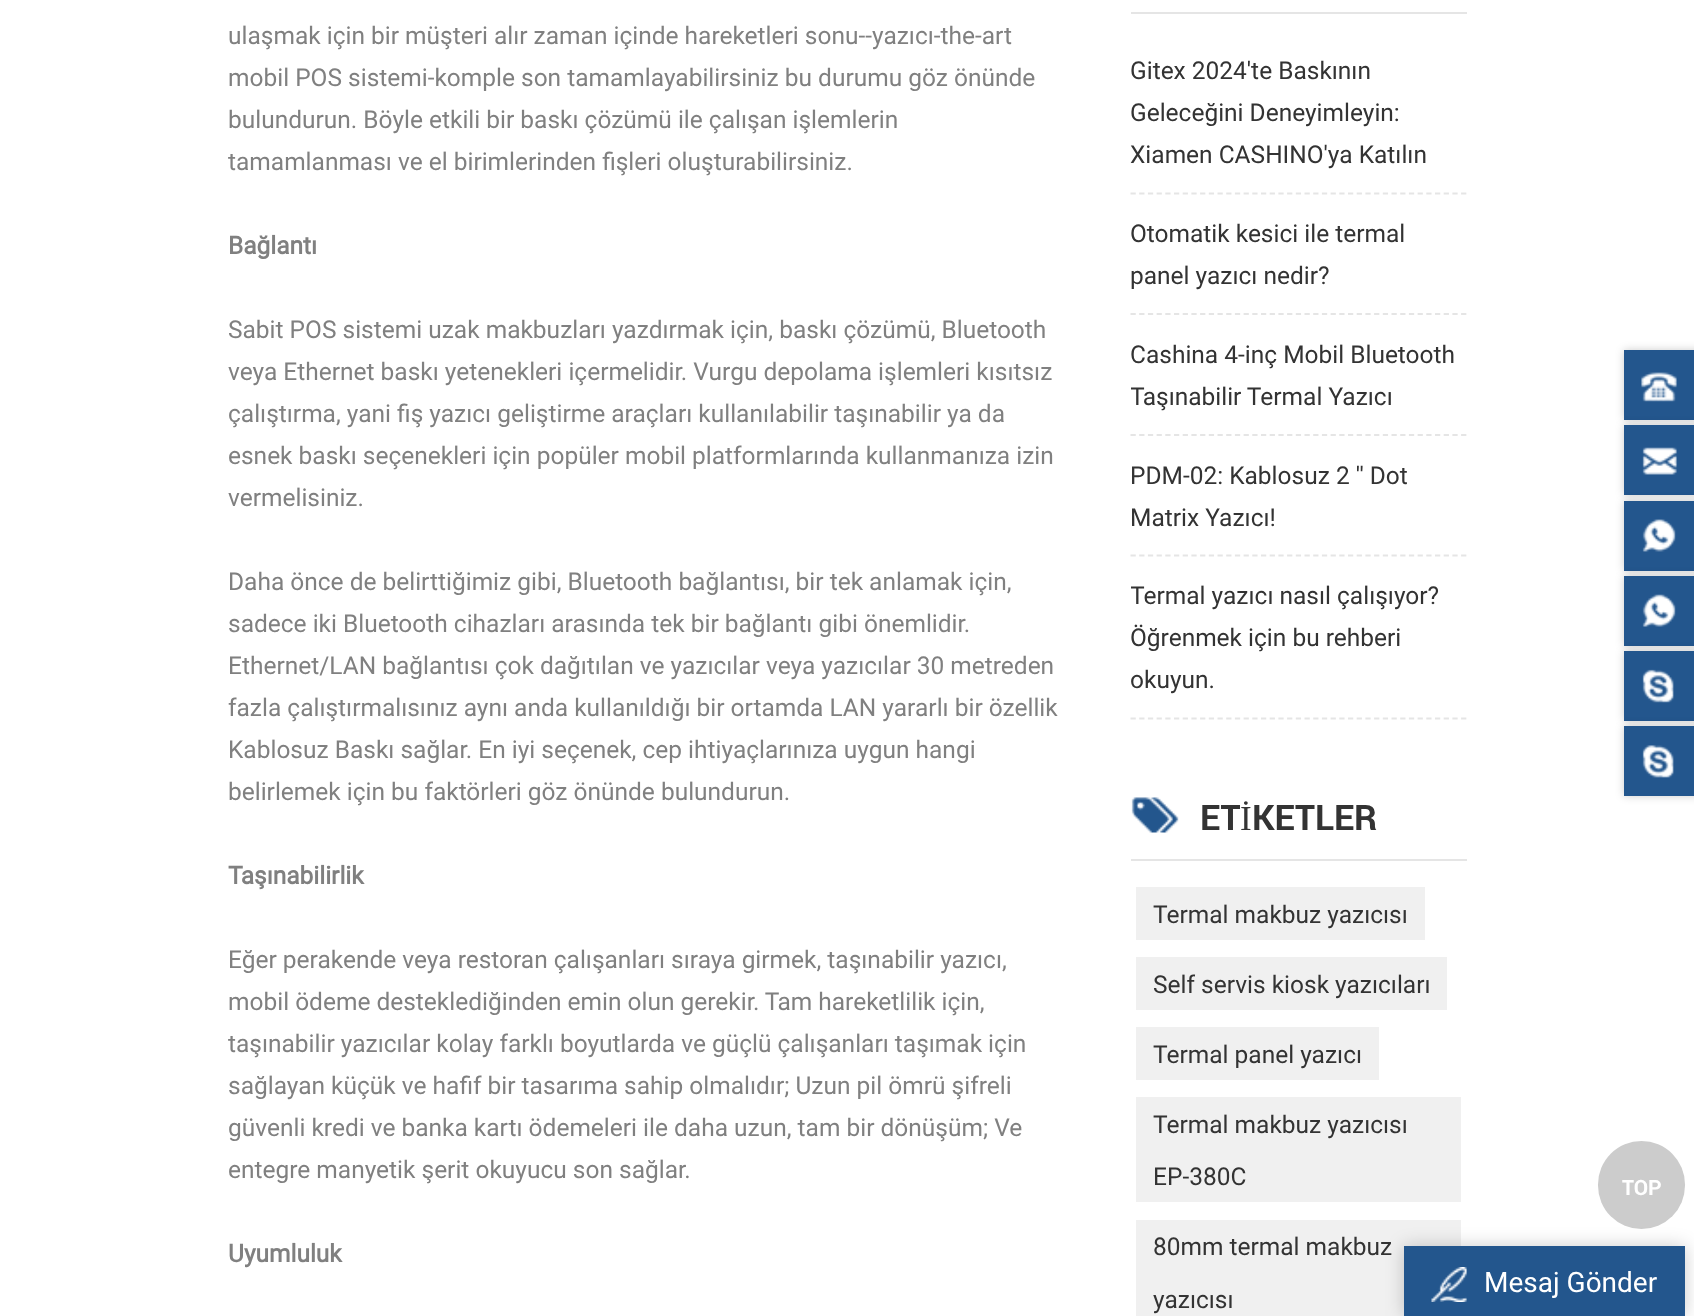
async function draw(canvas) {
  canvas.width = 1694
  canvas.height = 1316
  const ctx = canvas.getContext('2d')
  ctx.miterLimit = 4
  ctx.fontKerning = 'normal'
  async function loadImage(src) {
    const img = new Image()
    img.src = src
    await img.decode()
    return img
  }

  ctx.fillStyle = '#fff'
  ctx.fillRect(0, 0, 1694, 1316)
  ctx.font = '24.5px Roboto'
  ctx.fillStyle = '#808080'
  ctx.fillText('ulaşmak için bir müşteri alır zaman içinde hareketleri sonu--yazıcı-the-art', 228, 44)
  ctx.fillText('mobil POS sistemi-komple son tamamlayabilirsiniz bu durumu göz önünde', 228, 86)
  ctx.fillText('bulundurun. Böyle etkili bir baskı çözümü ile çalışan işlemlerin', 228, 128)
  ctx.fillText('tamamlanması ve el birimlerinden fişleri oluşturabilirsiniz.', 228, 170)
  ctx.font = 'bold 24.5px Roboto'
  ctx.fillText('Bağlantı', 228, 254)
  ctx.font = '24.5px Roboto'
  ctx.fillText('Sabit POS sistemi uzak makbuzları yazdırmak için, baskı çözümü, Bluetooth', 228, 338)
  ctx.fillText('veya Ethernet baskı yetenekleri içermelidir. Vurgu depolama işlemleri kısıtsız', 228, 380)
  ctx.fillText('çalıştırma, yani fiş yazıcı geliştirme araçları kullanılabilir taşınabilir ya da', 228, 422)
  ctx.fillText('esnek baskı seçenekleri için popüler mobil platformlarında kullanmanıza izin', 228, 464)
  ctx.fillText('vermelisiniz.', 228, 506)
  ctx.fillText('Daha önce de belirttiğimiz gibi, Bluetooth bağlantısı, bir tek anlamak için,', 228, 590)
  ctx.fillText('sadece iki Bluetooth cihazları arasında tek bir bağlantı gibi önemlidir.', 228, 632)
  ctx.fillText('Ethernet/LAN bağlantısı çok dağıtılan ve yazıcılar veya yazıcılar 30 metreden', 228, 674)
  ctx.fillText('fazla çalıştırmalısınız aynı anda kullanıldığı bir ortamda LAN yararlı bir özellik', 228, 716)
  ctx.fillText('Kablosuz Baskı sağlar. En iyi seçenek, cep ihtiyaçlarınıza uygun hangi', 228, 758)
  ctx.fillText('belirlemek için bu faktörleri göz önünde bulundurun.', 228, 800)
  ctx.font = 'bold 24.5px Roboto'
  ctx.fillText('Taşınabilirlik', 228, 884)
  ctx.font = '24.5px Roboto'
  ctx.fillText('Eğer perakende veya restoran çalışanları sıraya girmek, taşınabilir yazıcı,', 228, 968)
  ctx.fillText('mobil ödeme desteklediğinden emin olun gerekir. Tam hareketlilik için,', 228, 1010)
  ctx.fillText('taşınabilir yazıcılar kolay farklı boyutlarda ve güçlü çalışanları taşımak için', 228, 1052)
  ctx.fillText('sağlayan küçük ve hafif bir tasarıma sahip olmalıdır; Uzun pil ömrü şifreli', 228, 1094)
  ctx.fillText('güvenli kredi ve banka kartı ödemeleri ile daha uzun, tam bir dönüşüm; Ve', 228, 1136)
  ctx.fillText('entegre manyetik şerit okuyucu son sağlar.', 228, 1178)
  ctx.font = 'bold 24.5px Roboto'
  ctx.fillText('Uyumluluk', 228, 1262)
  ctx.fillStyle = '#e5e5e5'
  ctx.fillRect(1131, 12, 336, 2)
  ctx.beginPath()
  ctx.moveTo(1130.5, 193.5)
  ctx.lineTo(1466.5, 193.5)
  ctx.strokeStyle = '#e5e5e5'
  ctx.lineWidth = 1.8
  ctx.setLineDash([5.25, 3.45])
  ctx.stroke()
  ctx.font = '24.5px Roboto'
  ctx.fillStyle = '#333'
  ctx.fillText('Gitex 2024\'te Baskının', 1130, 79)
  ctx.fillText('Geleceğini Deneyimleyin:', 1130, 121)
  ctx.fillText('Xiamen CASHINO\'ya Katılın', 1130, 163)
  ctx.beginPath()
  ctx.moveTo(1130.5, 314)
  ctx.lineTo(1466.5, 314)
  ctx.stroke()
  ctx.fillText('Otomatik kesici ile termal', 1130, 242)
  ctx.fillText('panel yazıcı nedir?', 1130, 284)
  ctx.beginPath()
  ctx.moveTo(1130.5, 435)
  ctx.lineTo(1466.5, 435)
  ctx.stroke()
  ctx.fillText('Cashina 4-inç Mobil Bluetooth', 1130, 363)
  ctx.save()
  ctx.beginPath()
  ctx.rect(1131, 333, 336, 84)
  ctx.clip()
  ctx.fillText('Taşınabilir Termal Yazıcı', 1130, 405)
  ctx.restore()
  ctx.beginPath()
  ctx.moveTo(1130.5, 555.5)
  ctx.lineTo(1466.5, 555.5)
  ctx.stroke()
  ctx.fillText('PDM-02: Kablosuz 2 \'\' Dot', 1130, 484)
  ctx.fillText('Matrix Yazıcı!', 1130, 526)
  ctx.beginPath()
  ctx.moveTo(1130.5, 718.5)
  ctx.lineTo(1466.5, 718.5)
  ctx.stroke()
  ctx.save()
  ctx.beginPath()
  ctx.rect(1131, 574, 336, 126)
  ctx.clip()
  ctx.fillText('Termal yazıcı nasıl çalışıyor?', 1130, 604)
  ctx.restore()
  ctx.fillText('Öğrenmek için bu rehberi', 1130, 646)
  ctx.fillText('okuyun.', 1130, 688)
  ctx.fillStyle = '#e5e5e5'
  ctx.fillRect(1131, 859, 336, 2)
  ctx.drawImage(await loadImage('image0.png'), 1131, 797, 48, 36)
  ctx.font = 'bold 35px "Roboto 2"'
  ctx.fillStyle = '#333'
  ctx.fillText('ET', 1200, 830)
  ctx.font = '35px Liberation Serif'
  ctx.fillText('İ', 1240, 830)
  ctx.font = 'bold 35px "Roboto 2"'
  ctx.fillText('KETLER', 1252, 830)
  ctx.fillStyle = '#f0f0f0'
  ctx.fillRect(1136, 887, 289, 53)
  ctx.font = '24.5px Roboto'
  ctx.fillStyle = '#333'
  ctx.fillText('Termal makbuz yazıcısı', 1153, 923)
  ctx.fillStyle = '#f0f0f0'
  ctx.fillRect(1136, 957, 311, 53)
  ctx.fillStyle = '#333'
  ctx.fillText('Self servis kiosk yazıcıları', 1153, 993)
  ctx.fillStyle = '#f0f0f0'
  ctx.fillRect(1136, 1027, 243, 53)
  ctx.fillStyle = '#333'
  ctx.fillText('Termal panel yazıcı', 1153, 1063)
  ctx.fillStyle = '#f0f0f0'
  ctx.fillRect(1136, 1097, 325, 105)
  ctx.fillStyle = '#333'
  ctx.fillText('Termal makbuz yazıcısı', 1153, 1133)
  ctx.fillText('EP-380C', 1153, 1185)
  ctx.fillStyle = '#f0f0f0'
  ctx.fillRect(1136, 1220, 325, 96)
  ctx.fillStyle = '#333'
  ctx.fillText('80mm termal makbuz', 1153, 1255)
  ctx.fillText('yazıcısı', 1153, 1308)
  ctx.fillStyle = '#00000033'
  ctx.filter = 'blur(4.5px)'
  ctx.beginPath()
  ctx.rect(1624, 350, 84, 70)
  ctx.fill()
  ctx.filter = 'none'
  ctx.fillStyle = '#23568d'
  ctx.fillRect(1624, 350, 70, 70)
  ctx.drawImage(await loadImage('image1.png'), 1641, 372, 36, 30)
  ctx.fillStyle = '#00000033'
  ctx.filter = 'blur(4.5px)'
  ctx.beginPath()
  ctx.rect(1624, 425, 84, 70)
  ctx.fill()
  ctx.filter = 'none'
  ctx.fillStyle = '#23568d'
  ctx.fillRect(1624, 425, 70, 70)
  ctx.drawImage(await loadImage('image2.png'), 1642, 447, 35, 28)
  ctx.fillStyle = '#00000033'
  ctx.filter = 'blur(4.5px)'
  ctx.beginPath()
  ctx.rect(1624, 501, 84, 70)
  ctx.fill()
  ctx.filter = 'none'
  ctx.fillStyle = '#23568d'
  ctx.fillRect(1624, 501, 70, 70)
  ctx.drawImage(await loadImage('image3.png'), 1642, 519, 34, 33)
  ctx.fillStyle = '#00000033'
  ctx.filter = 'blur(4.5px)'
  ctx.beginPath()
  ctx.rect(1624, 576, 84, 70)
  ctx.fill()
  ctx.filter = 'none'
  ctx.fillStyle = '#23568d'
  ctx.fillRect(1624, 576, 70, 70)
  ctx.drawImage(await loadImage('image4.png'), 1642, 594, 34, 33)
  ctx.fillStyle = '#00000033'
  ctx.filter = 'blur(4.5px)'
  ctx.beginPath()
  ctx.rect(1624, 651, 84, 70)
  ctx.fill()
  ctx.filter = 'none'
  ctx.fillStyle = '#23568d'
  ctx.fillRect(1624, 651, 70, 70)
  ctx.drawImage(await loadImage('image5.png'), 1642, 669, 32, 34)
  ctx.fillStyle = '#00000033'
  ctx.filter = 'blur(4.5px)'
  ctx.beginPath()
  ctx.rect(1624, 726, 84, 70)
  ctx.fill()
  ctx.filter = 'none'
  ctx.fillStyle = '#23568d'
  ctx.fillRect(1624, 726, 70, 70)
  ctx.drawImage(await loadImage('image6.png'), 1642, 745, 32, 33)
  ctx.fillStyle = '#ccc'
  ctx.beginPath()
  ctx.roundRect(1598, 1141, 87, 88, 43.5)
  ctx.fill()
  ctx.font = 'bold 21px "Roboto 2"'
  ctx.fillStyle = '#fff'
  ctx.fillText('TOP', 1622, 1195)
  ctx.fillStyle = '#00000033'
  ctx.filter = 'blur(9px)'
  ctx.beginPath()
  ctx.rect(1404, 1246, 281, 70)
  ctx.fill()
  ctx.filter = 'none'
  ctx.fillStyle = '#23568d'
  ctx.fillRect(1404, 1246, 281, 70)
  ctx.drawImage(await loadImage('image7.png'), 1431, 1267, 36, 35)
  ctx.font = '28px Roboto'
  ctx.fillStyle = '#fff'
  ctx.fillText('Mesaj Gönder', 1484, 1292)
}

draw(document.querySelector('canvas'))
